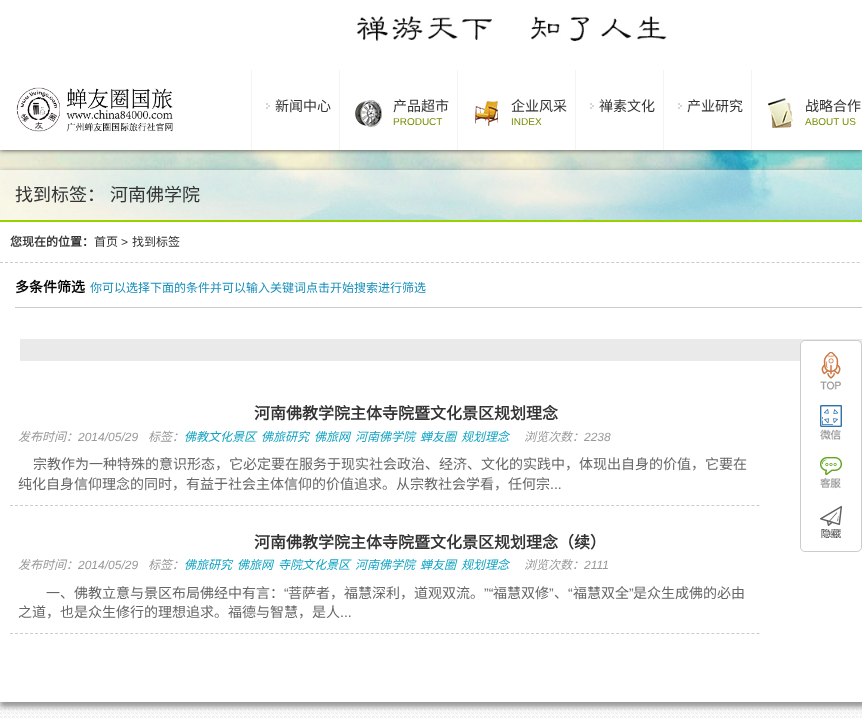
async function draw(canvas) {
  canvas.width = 862
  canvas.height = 718
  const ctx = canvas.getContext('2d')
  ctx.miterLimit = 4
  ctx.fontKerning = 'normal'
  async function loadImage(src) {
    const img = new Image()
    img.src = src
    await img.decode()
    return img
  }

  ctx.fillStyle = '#fff'
  ctx.fillRect(0, 0, 862, 718)
  ctx.drawImage(await loadImage('image0.png'), 0, 702, 862, 16)
  ctx.drawImage(await loadImage('image1.png'), 356, 16, 311, 26)
  ctx.drawImage(await loadImage('image7.png'), 0, 150, 862, 70)
  ctx.fillStyle = '#333'
  ctx.filter = 'blur(2.5px)'
  ctx.beginPath()
  ctx.rect(0, 70, 862, 80)
  ctx.fill()
  ctx.filter = 'none'
  ctx.fillStyle = '#fff'
  ctx.fillRect(0, 64, 862, 86)
  ctx.drawImage(await loadImage('image2.png'), 16, 87, 157, 45)
  ctx.fillStyle = '#f4f4f4'
  ctx.fillRect(251, 70, 1, 80)
  ctx.fillRect(339, 70, 1, 80)
  ctx.drawImage(await loadImage('image3.png'), 266, 103, 4, 6)
  ctx.font = '14px Noto Sans CJK SC'
  ctx.fillStyle = '#333'
  ctx.fillText('新闻中心', 275, 111)
  ctx.fillStyle = '#f4f4f4'
  ctx.fillRect(457, 70, 1, 80)
  ctx.drawImage(await loadImage('image4.png'), 355, 100, 27, 27)
  ctx.fillStyle = '#333'
  ctx.fillText('产品超市', 393, 111)
  ctx.font = '10px Liberation Sans'
  ctx.fillStyle = '#768e02'
  ctx.fillText('PRODUCT', 393, 125)
  ctx.fillStyle = '#f4f4f4'
  ctx.fillRect(575, 70, 1, 80)
  ctx.drawImage(await loadImage('image5.png'), 475, 101, 23, 25)
  ctx.font = '14px Noto Sans CJK SC'
  ctx.fillStyle = '#333'
  ctx.fillText('企业风采', 511, 111)
  ctx.font = '10px Liberation Sans'
  ctx.fillStyle = '#768e02'
  ctx.fillText('INDEX', 511, 125)
  ctx.fillStyle = '#f4f4f4'
  ctx.fillRect(663, 70, 1, 80)
  ctx.drawImage(await loadImage('image3.png'), 590, 103, 4, 6)
  ctx.font = '14px Noto Sans CJK SC'
  ctx.fillStyle = '#333'
  ctx.fillText('禅素文化', 599, 111)
  ctx.fillStyle = '#f4f4f4'
  ctx.fillRect(751, 70, 1, 80)
  ctx.drawImage(await loadImage('image3.png'), 678, 103, 4, 6)
  ctx.fillStyle = '#333'
  ctx.fillText('产业研究', 687, 111)
  ctx.drawImage(await loadImage('image6.png'), 768, 98, 25, 30)
  ctx.fillText('战略合作', 805, 111)
  ctx.font = '10px Liberation Sans'
  ctx.fillStyle = '#768e02'
  ctx.fillText('ABOUT US', 805, 125)
  ctx.save()
  ctx.beginPath()
  ctx.rect(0, 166, 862, 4)
  ctx.clip()
  ctx.fillStyle = '#999'
  ctx.filter = 'blur(2.5px)'
  ctx.beginPath()
  ctx.rect(0, 171, 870, 52)
  ctx.fill()
  ctx.filter = 'none'
  ctx.restore()
  ctx.fillStyle = '#ffffff80'
  ctx.fillRect(0, 170, 862, 50)
  ctx.fillStyle = '#98d000'
  ctx.fillRect(0, 220, 862, 2)
  ctx.wordSpacing = '1px'
  ctx.font = '18px Noto Sans CJK SC'
  ctx.fillStyle = '#333'
  ctx.fillText('找到标签： 河南佛学院', 15, 201)
  ctx.fillStyle = '#fff'
  ctx.fillRect(0, 222, 862, 6)
  ctx.beginPath()
  ctx.moveTo(0, 262.5)
  ctx.lineTo(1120, 262.5)
  ctx.strokeStyle = '#ccc'
  ctx.setLineDash([3, 2.01])
  ctx.stroke()
  ctx.wordSpacing = '0px'
  ctx.font = 'bold 12px Noto Sans CJK SC'
  ctx.fillStyle = '#333'
  ctx.fillText('您现在的位置：', 10, 246)
  ctx.font = '12px Noto Sans CJK SC'
  ctx.fillText('首页', 94, 246)
  ctx.font = '12px Liberation Sans'
  ctx.fillText('>', 121, 246)
  ctx.font = '12px Noto Sans CJK SC'
  ctx.fillText('找到标签', 132, 246)
  ctx.fillStyle = '#999'
  ctx.filter = 'blur(2.5px)'
  ctx.beginPath()
  ctx.rect(0, 268, 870, 439)
  ctx.fill()
  ctx.filter = 'none'
  ctx.fillStyle = '#fff'
  ctx.fillRect(0, 263, 862, 439)
  ctx.fillStyle = '#ccc'
  ctx.fillRect(15, 307, 847, 1)
  ctx.font = 'bold 14px Noto Sans CJK SC'
  ctx.fillStyle = '#000'
  ctx.fillText('多条件筛选', 15, 292)
  ctx.font = '12px Noto Sans CJK SC'
  ctx.fillStyle = '#188fba'
  ctx.fillText('你可以选择下面的条件并可以输入关键词点击开始搜索进行筛选', 90, 292)
  ctx.fillStyle = '#eaeaea'
  ctx.fillRect(20, 339, 842, 22)
  ctx.beginPath()
  ctx.moveTo(10, 505.5)
  ctx.lineTo(760, 505.5)
  ctx.stroke()
  ctx.font = 'bold 16px Noto Sans CJK SC'
  ctx.fillStyle = '#333'
  ctx.fillText('河南佛教学院主体寺院暨文化景区规划理念', 254, 419)
  ctx.font = 'italic 12px Noto Sans CJK SC'
  ctx.fillStyle = '#999'
  ctx.fillText('发布时间：', 18, 441)
  ctx.font = 'italic 12px Liberation Sans'
  ctx.fillText('2014/05/29', 78, 441)
  ctx.font = 'italic 12px Noto Sans CJK SC'
  ctx.fillText('标签：', 148, 441)
  ctx.fillStyle = '#11a3c2'
  ctx.fillText('佛教文化景区', 184, 441)
  ctx.fillText('佛旅研究', 261, 441)
  ctx.fillText('佛旅网', 314, 441)
  ctx.fillText('河南佛学院', 355, 441)
  ctx.fillText('蝉友圈', 420, 441)
  ctx.fillText('规划理念', 461, 441)
  ctx.fillStyle = '#999'
  ctx.fillText('浏览次数：', 524, 441)
  ctx.font = 'italic 12px Liberation Sans'
  ctx.fillText('2238', 584, 441)
  ctx.font = '14px Noto Sans CJK SC'
  ctx.fillStyle = '#666'
  ctx.fillText('宗教作为一种特殊的意识形态，它必定要在服务于现实社会政治、经济、文化的实践中，体现出自身的价值，它要在', 33, 469)
  ctx.fillText('纯化自身信仰理念的同时，有益于社会主体信仰的价值追求。从宗教社会学看，任何宗', 18, 489)
  ctx.font = '14px Liberation Sans'
  ctx.fillText('...', 550, 489)
  ctx.beginPath()
  ctx.moveTo(10, 633.5)
  ctx.lineTo(760, 633.5)
  ctx.stroke()
  ctx.font = 'bold 16px Noto Sans CJK SC'
  ctx.fillStyle = '#333'
  ctx.fillText('河南佛教学院主体寺院暨文化景区规划理念（续）', 254, 548)
  ctx.font = 'italic 12px Noto Sans CJK SC'
  ctx.fillStyle = '#999'
  ctx.fillText('发布时间：', 18, 569)
  ctx.font = 'italic 12px Liberation Sans'
  ctx.fillText('2014/05/29', 78, 569)
  ctx.font = 'italic 12px Noto Sans CJK SC'
  ctx.fillText('标签：', 148, 569)
  ctx.fillStyle = '#11a3c2'
  ctx.fillText('佛旅研究', 184, 569)
  ctx.fillText('佛旅网', 237, 569)
  ctx.fillText('寺院文化景区', 278, 569)
  ctx.fillText('河南佛学院', 355, 569)
  ctx.fillText('蝉友圈', 420, 569)
  ctx.fillText('规划理念', 461, 569)
  ctx.fillStyle = '#999'
  ctx.fillText('浏览次数：', 524, 569)
  ctx.font = 'italic 12px Liberation Sans'
  ctx.fillText('2111', 584, 569)
  ctx.font = '14px Noto Sans CJK SC'
  ctx.fillStyle = '#666'
  ctx.fillText('一、佛教立意与景区布局佛经中有言：', 46, 598)
  ctx.font = '14px Liberation Sans'
  ctx.fillText('“', 284, 598)
  ctx.font = '14px Noto Sans CJK SC'
  ctx.fillText('菩萨者，福慧深利，道观双流。', 288, 598)
  ctx.font = '14px Liberation Sans'
  ctx.fillText('”“', 484, 598)
  ctx.font = '14px Noto Sans CJK SC'
  ctx.fillText('福慧双修', 493, 598)
  ctx.font = '14px Liberation Sans'
  ctx.fillText('”', 549, 598)
  ctx.fillText('“', 568, 598)
  ctx.font = '14px Noto Sans CJK SC'
  ctx.fillText('福慧双全', 573, 598)
  ctx.font = '14px Liberation Sans'
  ctx.fillText('”', 629, 598)
  ctx.font = '14px Noto Sans CJK SC'
  ctx.fillText('是众生成佛的必由', 633, 598)
  ctx.fillText('、', 554, 598)
  ctx.fillText('之道，也是众生修行的理想追求。福德与智慧，是人', 18, 617)
  ctx.font = '14px Liberation Sans'
  ctx.fillText('...', 340, 617)
  ctx.fillStyle = '#fff'
  ctx.beginPath()
  ctx.roundRect(800.5, 340.5, 61, 211, 4.5)
  ctx.fill()
  ctx.setLineDash([])
  ctx.stroke()
  ctx.drawImage(await loadImage('image8.png'), 820, 352, 21, 38)
  ctx.drawImage(await loadImage('image9.png'), 820, 405, 22, 35)
  ctx.drawImage(await loadImage('image10.png'), 820, 457, 22, 32)
  ctx.drawImage(await loadImage('image11.png'), 820, 506, 22, 32)
}

draw(document.querySelector('canvas'))
